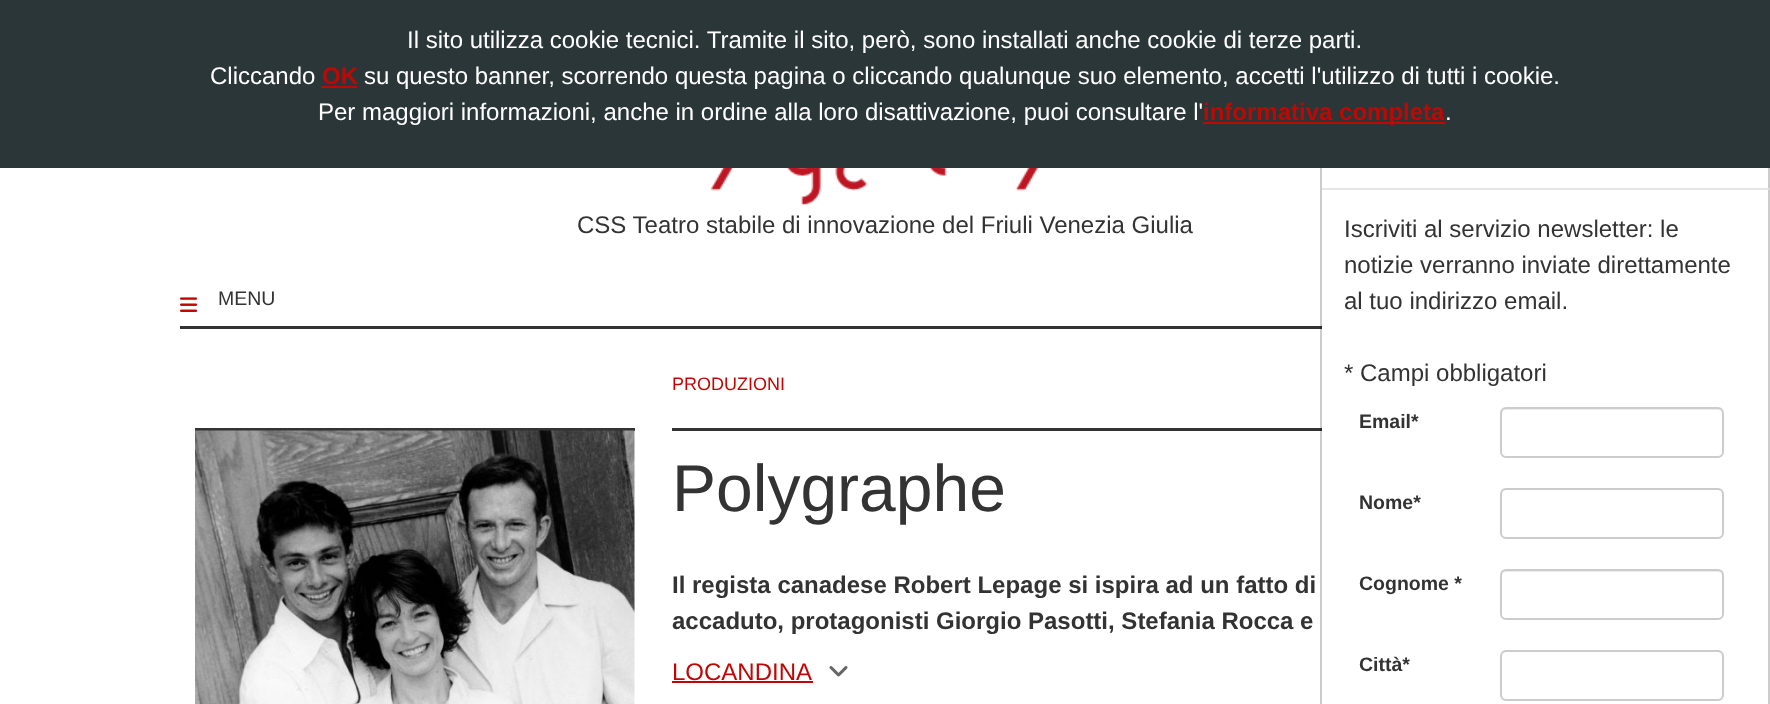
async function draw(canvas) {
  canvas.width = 1770
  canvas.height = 704
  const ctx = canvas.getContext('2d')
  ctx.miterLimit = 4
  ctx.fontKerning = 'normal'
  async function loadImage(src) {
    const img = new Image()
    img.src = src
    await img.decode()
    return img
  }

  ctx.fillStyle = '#fff'
  ctx.fillRect(0, 0, 1770, 704)
  ctx.fillStyle = '#333'
  ctx.fillRect(180, 326, 1142, 3)
  ctx.fillRect(672, 428, 650, 3)
  ctx.strokeStyle = '#00000033'
  ctx.lineWidth = 2
  ctx.strokeRect(1321, 46, 448, 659)
  ctx.fillStyle = '#2b3638'
  ctx.fillRect(0, 0, 1770, 168)
  ctx.font = '24px Liberation Sans'
  ctx.fillStyle = '#fff'
  ctx.fillText('Il sito utilizza cookie tecnici. Tramite il sito, però, sono installati anche cookie di terze parti.', 407, 48)
  ctx.fillText('Cliccando', 210, 84)
  ctx.font = 'bold 24px Liberation Sans'
  ctx.fillStyle = '#bf0804'
  ctx.fillText('OK', 322, 84)
  ctx.fillRect(321, 86, 36, 2)
  ctx.font = '24px Liberation Sans'
  ctx.fillStyle = '#fff'
  ctx.fillText('su questo banner, scorrendo questa pagina o cliccando qualunque suo elemento, accetti l\'utilizzo di tutti i cookie.', 364, 84)
  ctx.fillText('Per maggiori informazioni, anche in ordine alla loro disattivazione, puoi consultare l\'', 318, 120)
  ctx.fillStyle = '#bf0804'
  ctx.fillRect(1203, 122, 242, 2)
  ctx.font = 'bold 24px Liberation Sans'
  ctx.fillText('informativa completa', 1203, 120)
  ctx.font = '24px Liberation Sans'
  ctx.fillStyle = '#fff'
  ctx.fillText('.', 1445, 120)
  ctx.drawImage(await loadImage('image0.png'), 710, 168, 329, 38)
  ctx.fillStyle = '#333'
  ctx.fillText('CSS Teatro stabile di innovazione del Friuli Venezia Giulia', 577, 233)
  ctx.drawImage(await loadImage('image1.png'), 180, 297, 17, 15)
  ctx.font = '19.5px Liberation Sans'
  ctx.fillText('MENU', 218, 305)
  ctx.fillStyle = '#e5e5e5'
  ctx.fillRect(1322, 188, 447, 2)
  ctx.font = '24px Liberation Sans'
  ctx.fillStyle = '#333'
  ctx.fillText('Iscriviti al servizio newsletter: le', 1344, 237)
  ctx.fillText('notizie verranno inviate direttamente', 1344, 273)
  ctx.fillText('al tuo indirizzo email.', 1344, 309)
  ctx.fillText('* Campi obbligatori', 1344, 381)
  ctx.font = 'bold 19.5px Liberation Sans'
  ctx.fillText('Email*', 1359, 428)
  ctx.fillStyle = '#ececec'
  ctx.beginPath()
  ctx.moveTo(1506, 410)
  ctx.lineTo(1718, 410)
  ctx.bezierCurveTo(1720, 410, 1722, 412, 1722, 414)
  ctx.bezierCurveTo(1722, 411, 1720, 408, 1717, 408)
  ctx.lineTo(1506, 408)
  ctx.bezierCurveTo(1503, 409, 1502, 411, 1502, 414)
  ctx.bezierCurveTo(1502, 412, 1504, 410, 1506, 410)
  ctx.closePath()
  ctx.fill()
  ctx.beginPath()
  ctx.roundRect(1501, 408, 222, 49, 5)
  ctx.strokeStyle = '#ccc'
  ctx.stroke()
  ctx.fillStyle = '#333'
  ctx.fillText('Nome*', 1359, 509)
  ctx.fillStyle = '#ececec'
  ctx.beginPath()
  ctx.moveTo(1506, 490)
  ctx.lineTo(1718, 490)
  ctx.bezierCurveTo(1720, 490, 1722, 493, 1722, 495)
  ctx.bezierCurveTo(1722, 492, 1720, 489, 1717, 489)
  ctx.lineTo(1506, 489)
  ctx.bezierCurveTo(1503, 490, 1502, 492, 1502, 495)
  ctx.bezierCurveTo(1502, 493, 1504, 490, 1506, 490)
  ctx.closePath()
  ctx.fill()
  ctx.beginPath()
  ctx.roundRect(1501, 489, 222, 49, 5)
  ctx.stroke()
  ctx.fillStyle = '#333'
  ctx.fillText('Cognome *', 1359, 590)
  ctx.fillStyle = '#ececec'
  ctx.beginPath()
  ctx.moveTo(1506, 572)
  ctx.lineTo(1718, 572)
  ctx.bezierCurveTo(1720, 572, 1722, 574, 1722, 576)
  ctx.bezierCurveTo(1722, 573, 1720, 570, 1717, 570)
  ctx.lineTo(1506, 570)
  ctx.bezierCurveTo(1503, 571, 1502, 573, 1502, 576)
  ctx.bezierCurveTo(1502, 574, 1504, 572, 1506, 572)
  ctx.closePath()
  ctx.fill()
  ctx.beginPath()
  ctx.roundRect(1501, 570, 222, 49, 5)
  ctx.stroke()
  ctx.fillStyle = '#333'
  ctx.fillText('Città*', 1359, 671)
  ctx.fillStyle = '#ececec'
  ctx.beginPath()
  ctx.moveTo(1506, 652)
  ctx.lineTo(1718, 652)
  ctx.bezierCurveTo(1720, 652, 1722, 655, 1722, 657)
  ctx.bezierCurveTo(1722, 654, 1720, 651, 1717, 651)
  ctx.lineTo(1506, 651)
  ctx.bezierCurveTo(1503, 652, 1502, 654, 1502, 657)
  ctx.bezierCurveTo(1502, 655, 1504, 652, 1506, 652)
  ctx.closePath()
  ctx.fill()
  ctx.beginPath()
  ctx.roundRect(1501, 651, 222, 49, 5)
  ctx.stroke()
  ctx.fillStyle = '#333'
  ctx.fillRect(195, 428, 440, 3)
  ctx.drawImage(await loadImage('image2.png'), 195, 430, 440, 274)
  ctx.font = '18px Liberation Sans'
  ctx.fillStyle = '#bf0804'
  ctx.fillText('PRODUZIONI', 672, 390)
  ctx.font = '66px Liberation Sans'
  ctx.fillStyle = '#333'
  ctx.fillText('Polygraphe', 672, 511)
  ctx.font = 'bold 24px Liberation Sans'
  ctx.fillText('Il regista canadese Robert Lepage si ispira ad un fatto di', 672, 593)
  ctx.fillText('accaduto, protagonisti Giorgio Pasotti, Stefania Rocca e', 672, 629)
  ctx.font = '24px Liberation Sans'
  ctx.fillStyle = '#bf0804'
  ctx.fillText('LOCANDINA', 672, 680)
  ctx.fillRect(672, 681, 141, 2)
  ctx.drawImage(await loadImage('image3.png'), 829, 666, 19, 11)
}

draw(document.querySelector('canvas'))
